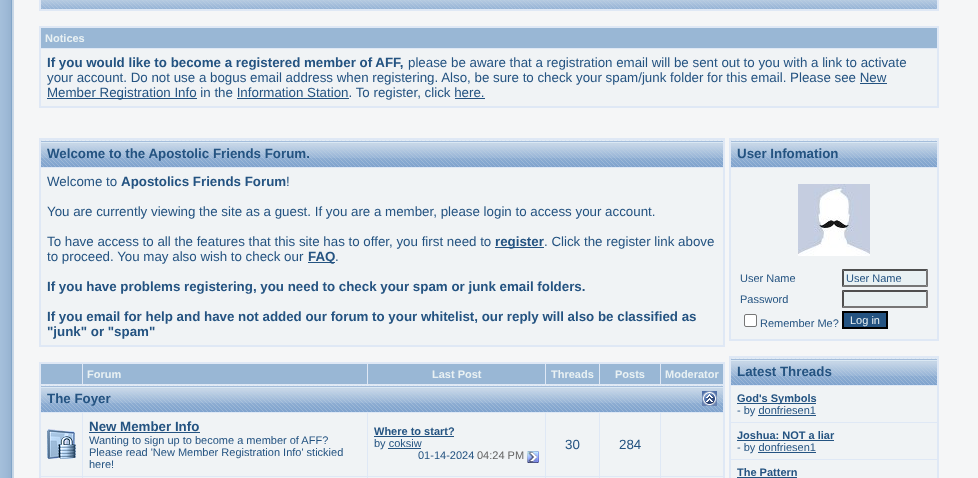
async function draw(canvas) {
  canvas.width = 978
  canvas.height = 478
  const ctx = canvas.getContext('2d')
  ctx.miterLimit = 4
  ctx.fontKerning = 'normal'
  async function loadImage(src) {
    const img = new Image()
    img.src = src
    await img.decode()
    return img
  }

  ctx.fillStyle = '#fff'
  ctx.fillRect(0, 0, 978, 478)
  ctx.drawImage(await loadImage('image0.png'), 0, 0, 14, 478)
  ctx.fillStyle = '#f5f6f7'
  ctx.fillRect(14, 0, 964, 478)
  ctx.fillStyle = '#dfe8f5'
  ctx.fillRect(40, 0, 898, 10)
  ctx.fillRect(938, 0, 1, 11)
  ctx.fillRect(39, 10, 900, 1)
  ctx.fillRect(39, 0, 1, 11)
  ctx.drawImage(await loadImage('image1.png'), 41, 0, 177, 9)
  ctx.drawImage(await loadImage('image2.png'), 218, 0, 109, 9)
  ctx.drawImage(await loadImage('image3.png'), 327, 0, 187, 9)
  ctx.drawImage(await loadImage('image4.png'), 514, 0, 269, 9)
  ctx.drawImage(await loadImage('image5.png'), 783, 0, 154, 9)
  ctx.fillRect(39, 26, 900, 82)
  ctx.fillStyle = '#99b7d5'
  ctx.fillRect(41, 28, 896, 20)
  ctx.font = 'bold 11px Liberation Sans'
  ctx.fillStyle = '#e9f1f3'
  ctx.fillText('Notices', 45, 42)
  ctx.fillStyle = '#f0f3f5'
  ctx.fillRect(41, 49, 896, 57)
  ctx.font = 'bold 13.33px Liberation Sans'
  ctx.fillStyle = '#245381'
  ctx.fillText('If you would like to become a registered member of AFF,', 47, 67)
  ctx.font = '13.33px Liberation Sans'
  ctx.fillText('please be aware that a registration email will be sent out to you with a link to activate', 408, 67)
  ctx.fillText('your account. Do not use a bogus email address when registering. Also, be sure to check your spam/junk folder for this email. Please see New', 47, 82)
  ctx.fillRect(47, 98, 150, 1)
  ctx.fillText('Member Registration Info in the Information Station. To register, click here.', 47, 97)
  ctx.fillRect(860, 83, 27, 1)
  ctx.fillRect(237, 98, 112, 1)
  ctx.fillRect(455, 98, 30, 1)
  ctx.fillStyle = '#dfe8f5'
  ctx.fillRect(39, 138, 686, 209)
  ctx.drawImage(await loadImage('image6.png'), 41, 140, 682, 27)
  ctx.font = 'bold 13.33px Liberation Sans'
  ctx.fillStyle = '#245381'
  ctx.fillText('Welcome to the Apostolic Friends Forum.', 47, 158)
  ctx.fillStyle = '#f0f3f5'
  ctx.fillRect(41, 168, 682, 177)
  ctx.font = '13.33px Liberation Sans'
  ctx.fillStyle = '#245381'
  ctx.fillText('Welcome to', 47, 186)
  ctx.font = 'bold 13.33px Liberation Sans'
  ctx.fillText('Apostolics Friends Forum', 121, 186)
  ctx.font = '13.33px Liberation Sans'
  ctx.fillText('!', 286, 186)
  ctx.fillText('You are currently viewing the site as a guest. If you are a member, please login to access your account.', 47, 216)
  ctx.fillText('To have access to all the features that this site has to offer, you first need to', 47, 246)
  ctx.fillRect(495, 247, 49, 1)
  ctx.font = 'bold 13.33px Liberation Sans'
  ctx.fillText('register', 495, 246)
  ctx.font = '13.33px Liberation Sans'
  ctx.fillText('. Click the register link above', 544, 246)
  ctx.fillText('to proceed. You may also wish to check our', 47, 261)
  ctx.fillRect(308, 262, 27, 1)
  ctx.font = 'bold 13.33px Liberation Sans'
  ctx.fillText('FAQ', 308, 261)
  ctx.font = '13.33px Liberation Sans'
  ctx.fillText('.', 335, 261)
  ctx.font = 'bold 13.33px Liberation Sans'
  ctx.fillText('If you have problems registering, you need to check your spam or junk email folders.', 47, 291)
  ctx.fillText('If you email for help and have not added our forum to your whitelist, our reply will also be classified as', 47, 321)
  ctx.fillText('"junk" or "spam"', 47, 336)
  ctx.fillStyle = '#dfe8f5'
  ctx.fillRect(39, 362, 686, 116)
  ctx.fillStyle = '#99b7d5'
  ctx.fillRect(41, 364, 41, 20)
  ctx.fillRect(83, 364, 284, 20)
  ctx.font = 'bold 11px Liberation Sans'
  ctx.fillStyle = '#e9f1f3'
  ctx.fillText('Forum', 87, 378)
  ctx.fillStyle = '#99b7d5'
  ctx.fillRect(368, 364, 177, 20)
  ctx.fillStyle = '#e9f1f3'
  ctx.fillText('Last Post', 432, 378)
  ctx.fillStyle = '#99b7d5'
  ctx.fillRect(546, 364, 53, 20)
  ctx.fillStyle = '#e9f1f3'
  ctx.fillText('Threads', 551, 378)
  ctx.fillStyle = '#99b7d5'
  ctx.fillRect(600, 364, 60, 20)
  ctx.fillStyle = '#e9f1f3'
  ctx.fillText('Posts', 615, 378)
  ctx.fillStyle = '#99b7d5'
  ctx.fillRect(661, 364, 62, 20)
  ctx.fillStyle = '#e9f1f3'
  ctx.fillText('Moderator', 665, 378)
  ctx.drawImage(await loadImage('image6.png'), 41, 385, 682, 27)
  ctx.font = 'bold 13.33px Liberation Sans'
  ctx.fillStyle = '#245381'
  ctx.fillText('The Foyer', 47, 403)
  ctx.drawImage(await loadImage('image7.png'), 702, 391, 15, 15)
  ctx.fillStyle = '#f0f3f5'
  ctx.fillRect(41, 413, 41, 63)
  ctx.drawImage(await loadImage('image8.png'), 47, 429, 29, 30)
  ctx.fillRect(83, 413, 284, 63)
  ctx.fillStyle = '#245381'
  ctx.fillText('New Member Info', 89, 431)
  ctx.fillRect(89, 432, 111, 1)
  ctx.font = '11px Liberation Sans'
  ctx.fillText('Wanting to sign up to become a member of AFF?', 89, 444)
  ctx.fillText('Please read \'New Member Registration Info\' stickied', 89, 456)
  ctx.fillText('here!', 89, 468)
  ctx.fillStyle = '#f0f3f5'
  ctx.fillRect(368, 413, 177, 63)
  ctx.font = 'bold 11px Liberation Sans'
  ctx.fillStyle = '#245381'
  ctx.fillText('Where to start?', 374, 435)
  ctx.fillRect(374, 436, 80, 1)
  ctx.font = '11px Liberation Sans'
  ctx.fillText('by coksiw', 374, 447)
  ctx.fillRect(388, 448, 33, 1)
  ctx.fillText('01-14-2024', 418, 459)
  ctx.fillStyle = '#636363'
  ctx.fillText('04:24 PM', 477, 459)
  ctx.drawImage(await loadImage('image9.png'), 527, 451, 12, 12)
  ctx.fillStyle = '#f0f3f5'
  ctx.fillRect(546, 413, 53, 63)
  ctx.font = '13.33px Liberation Sans'
  ctx.fillStyle = '#245381'
  ctx.fillText('30', 565, 449)
  ctx.fillStyle = '#f0f3f5'
  ctx.fillRect(600, 413, 60, 63)
  ctx.fillStyle = '#245381'
  ctx.fillText('284', 619, 449)
  ctx.fillStyle = '#f0f3f5'
  ctx.fillRect(661, 413, 62, 63)
  ctx.fillRect(41, 477, 41, 1)
  ctx.fillRect(83, 477, 284, 1)
  ctx.fillRect(368, 477, 177, 1)
  ctx.fillRect(546, 477, 53, 1)
  ctx.fillRect(600, 477, 60, 1)
  ctx.fillRect(661, 477, 62, 1)
  ctx.fillStyle = '#dfe8f5'
  ctx.fillRect(729, 138, 210, 203)
  ctx.drawImage(await loadImage('image10.png'), 731, 140, 206, 27)
  ctx.font = 'bold 13.33px Liberation Sans'
  ctx.fillStyle = '#245381'
  ctx.fillText('User Infomation', 737, 158)
  ctx.fillStyle = '#f0f3f5'
  ctx.fillRect(731, 168, 206, 171)
  ctx.drawImage(await loadImage('image11.png'), 798, 184, 72, 72)
  ctx.font = '11px Liberation Sans'
  ctx.fillStyle = '#245381'
  ctx.fillText('User Name', 740, 282)
  ctx.fillStyle = '#e9f1f3'
  ctx.fillRect(842, 269, 86, 18)
  ctx.fillStyle = '#4f4f4f'
  ctx.beginPath()
  ctx.moveTo(842, 269)
  ctx.lineTo(928, 269)
  ctx.lineTo(926, 271)
  ctx.lineTo(844, 271)
  ctx.closePath()
  ctx.fill()
  ctx.fillStyle = '#767676'
  ctx.beginPath()
  ctx.moveTo(928, 269)
  ctx.lineTo(928, 287)
  ctx.lineTo(926, 285)
  ctx.lineTo(926, 271)
  ctx.closePath()
  ctx.fill()
  ctx.beginPath()
  ctx.moveTo(928, 287)
  ctx.lineTo(842, 287)
  ctx.lineTo(844, 285)
  ctx.lineTo(926, 285)
  ctx.closePath()
  ctx.fill()
  ctx.fillStyle = '#4f4f4f'
  ctx.beginPath()
  ctx.moveTo(842, 287)
  ctx.lineTo(842, 269)
  ctx.lineTo(844, 271)
  ctx.lineTo(844, 285)
  ctx.closePath()
  ctx.fill()
  ctx.fillStyle = '#245381'
  ctx.fillText('User Name', 846, 282)
  ctx.fillText('Password', 740, 303)
  ctx.fillStyle = '#e9f1f3'
  ctx.fillRect(842, 290, 86, 18)
  ctx.fillStyle = '#4f4f4f'
  ctx.beginPath()
  ctx.moveTo(842, 290)
  ctx.lineTo(928, 290)
  ctx.lineTo(926, 292)
  ctx.lineTo(844, 292)
  ctx.closePath()
  ctx.fill()
  ctx.fillStyle = '#767676'
  ctx.beginPath()
  ctx.moveTo(928, 290)
  ctx.lineTo(928, 308)
  ctx.lineTo(926, 306)
  ctx.lineTo(926, 292)
  ctx.closePath()
  ctx.fill()
  ctx.beginPath()
  ctx.moveTo(928, 308)
  ctx.lineTo(842, 308)
  ctx.lineTo(844, 306)
  ctx.lineTo(926, 306)
  ctx.closePath()
  ctx.fill()
  ctx.fillStyle = '#4f4f4f'
  ctx.beginPath()
  ctx.moveTo(842, 308)
  ctx.lineTo(842, 290)
  ctx.lineTo(844, 292)
  ctx.lineTo(844, 306)
  ctx.closePath()
  ctx.fill()
  ctx.fillStyle = '#fff'
  ctx.beginPath()
  ctx.roundRect(744.5, 314.5, 12, 12, 1.5)
  ctx.fill()
  ctx.strokeStyle = '#767676'
  ctx.stroke()
  ctx.fillStyle = '#245381'
  ctx.fillText('Remember Me?', 760, 327)
  ctx.beginPath()
  ctx.rect(843, 312, 44, 16)
  ctx.fill()
  ctx.strokeStyle = '#000'
  ctx.lineWidth = 2
  ctx.stroke()
  ctx.fillStyle = '#e9f1f3'
  ctx.fillText('Log in', 850, 324)
  ctx.fillStyle = '#dfe8f5'
  ctx.fillRect(729, 356, 210, 122)
  ctx.drawImage(await loadImage('image10.png'), 731, 358, 206, 27)
  ctx.font = 'bold 13.33px Liberation Sans'
  ctx.fillStyle = '#245381'
  ctx.fillText('Latest Threads', 737, 376)
  ctx.fillStyle = '#f0f3f5'
  ctx.fillRect(731, 386, 206, 36)
  ctx.fillStyle = '#245381'
  ctx.fillRect(737, 403, 79, 1)
  ctx.font = 'bold 11px Liberation Sans'
  ctx.fillText('God\'s Symbols', 737, 402)
  ctx.font = '11px Liberation Sans'
  ctx.fillText('- by donfriesen1', 737, 414)
  ctx.fillRect(758, 415, 58, 1)
  ctx.fillStyle = '#f0f3f5'
  ctx.fillRect(731, 423, 206, 36)
  ctx.font = 'bold 11px Liberation Sans'
  ctx.fillStyle = '#245381'
  ctx.fillText('Joshua: NOT a liar', 737, 439)
  ctx.fillRect(737, 440, 97, 1)
  ctx.font = '11px Liberation Sans'
  ctx.fillText('- by donfriesen1', 737, 451)
  ctx.fillRect(758, 452, 58, 1)
  ctx.fillStyle = '#f0f3f5'
  ctx.fillRect(731, 460, 206, 18)
  ctx.font = 'bold 11px Liberation Sans'
  ctx.fillStyle = '#245381'
  ctx.fillText('The Pattern', 737, 476)
  ctx.fillRect(737, 477, 60, 1)
}

draw(document.querySelector('canvas'))
